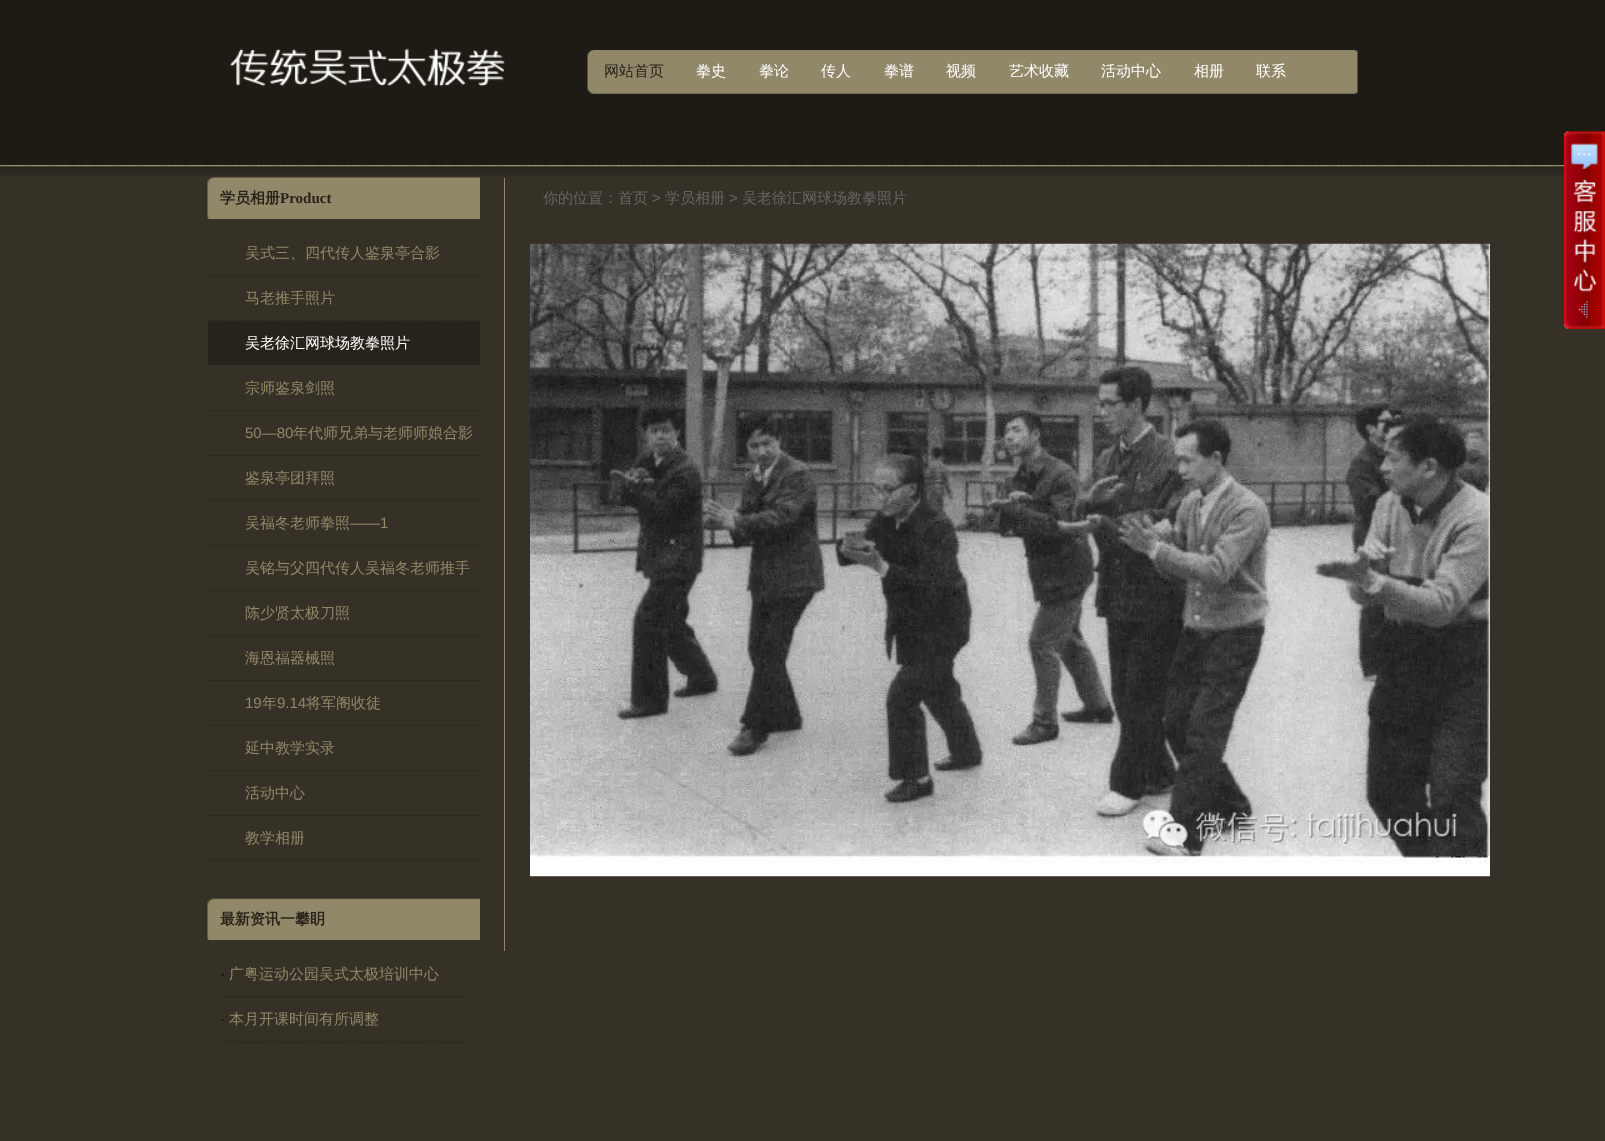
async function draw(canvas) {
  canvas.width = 1605
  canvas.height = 1141
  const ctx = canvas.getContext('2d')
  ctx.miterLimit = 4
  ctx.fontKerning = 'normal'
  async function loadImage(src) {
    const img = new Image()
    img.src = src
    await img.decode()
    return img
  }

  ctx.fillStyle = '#1e1b14'
  ctx.fillRect(0, 0, 1605, 1141)
  ctx.drawImage(await loadImage('image0.png'), 230, 48, 275, 39)
  ctx.drawImage(await loadImage('image1.png'), 587, 50, 771, 44)
  ctx.font = '500 15px WenQuanYi Zen Hei'
  ctx.fillStyle = '#27231a'
  ctx.fillText('网站首页', 604, 76)
  ctx.fillStyle = '#fff'
  ctx.fillText('拳史', 696, 76)
  ctx.fillText('拳论', 759, 76)
  ctx.fillText('传人', 821, 76)
  ctx.fillText('拳谱', 884, 76)
  ctx.fillText('视频', 946, 76)
  ctx.fillText('艺术收藏', 1009, 76)
  ctx.fillText('活动中心', 1101, 76)
  ctx.fillText('相册', 1194, 76)
  ctx.fillText('联系', 1256, 76)
  ctx.fillStyle = '#353127'
  ctx.fillRect(0, 176, 1605, 965)
  ctx.drawImage(await loadImage('image2.png'), 0, 165, 1564, 11)
  ctx.drawImage(await loadImage('image3.png'), 207, 177, 273, 42)
  ctx.fillStyle = '#918869'
  ctx.fillRect(208, 218, 272, 1)
  ctx.font = 'bold 15px WenQuanYi Zen Hei'
  ctx.fillStyle = '#27231a'
  ctx.fillText('学员相册', 220, 203)
  ctx.font = 'bold 15px Liberation Serif'
  ctx.fillText('Product', 280, 203)
  ctx.beginPath()
  ctx.moveTo(207.5, 275.5)
  ctx.lineTo(480, 275.5)
  ctx.strokeStyle = '#27231a'
  ctx.lineWidth = 1.2
  ctx.setLineDash([1.25, 1.25])
  ctx.stroke()
  ctx.font = '500 15px WenQuanYi Zen Hei'
  ctx.fillStyle = '#918869'
  ctx.fillText('吴式三、四代传人鉴泉亭合影', 245, 258)
  ctx.beginPath()
  ctx.moveTo(207.5, 320.5)
  ctx.lineTo(480, 320.5)
  ctx.stroke()
  ctx.fillText('马老推手照片', 245, 303)
  ctx.fillStyle = '#27231a'
  ctx.fillRect(208, 321, 272, 44)
  ctx.fillStyle = '#fff'
  ctx.fillText('吴老徐汇网球场教拳照片', 245, 348)
  ctx.beginPath()
  ctx.moveTo(207.5, 410.5)
  ctx.lineTo(480, 410.5)
  ctx.stroke()
  ctx.fillStyle = '#918869'
  ctx.fillText('宗师鉴泉剑照', 245, 393)
  ctx.beginPath()
  ctx.moveTo(207.5, 455.5)
  ctx.lineTo(480, 455.5)
  ctx.stroke()
  ctx.font = '15px Liberation Sans'
  ctx.fillText('50—80', 245, 438)
  ctx.font = '500 15px WenQuanYi Zen Hei'
  ctx.fillText('年代师兄弟与老师师娘合影', 293, 438)
  ctx.beginPath()
  ctx.moveTo(207.5, 500.5)
  ctx.lineTo(480, 500.5)
  ctx.stroke()
  ctx.fillText('鉴泉亭团拜照', 245, 483)
  ctx.beginPath()
  ctx.moveTo(207.5, 545.5)
  ctx.lineTo(480, 545.5)
  ctx.stroke()
  ctx.fillText('吴福冬老师拳照', 245, 528)
  ctx.font = '15px Liberation Sans'
  ctx.fillText('——1', 350, 528)
  ctx.beginPath()
  ctx.moveTo(207.5, 590.5)
  ctx.lineTo(480, 590.5)
  ctx.stroke()
  ctx.font = '500 15px WenQuanYi Zen Hei'
  ctx.fillText('吴铭与父四代传人吴福冬老师推手', 245, 573)
  ctx.beginPath()
  ctx.moveTo(207.5, 635.5)
  ctx.lineTo(480, 635.5)
  ctx.stroke()
  ctx.fillText('陈少贤太极刀照', 245, 618)
  ctx.beginPath()
  ctx.moveTo(207.5, 680.5)
  ctx.lineTo(480, 680.5)
  ctx.stroke()
  ctx.fillText('海恩福器械照', 245, 663)
  ctx.beginPath()
  ctx.moveTo(207.5, 725.5)
  ctx.lineTo(480, 725.5)
  ctx.stroke()
  ctx.font = '15px Liberation Sans'
  ctx.fillText('19', 245, 708)
  ctx.font = '500 15px WenQuanYi Zen Hei'
  ctx.fillText('年', 262, 708)
  ctx.font = '15px Liberation Sans'
  ctx.fillText('9.14', 277, 708)
  ctx.font = '500 15px WenQuanYi Zen Hei'
  ctx.fillText('将军阁收徒', 306, 708)
  ctx.beginPath()
  ctx.moveTo(207.5, 770.5)
  ctx.lineTo(480, 770.5)
  ctx.stroke()
  ctx.fillText('延中教学实录', 245, 753)
  ctx.beginPath()
  ctx.moveTo(207.5, 815.5)
  ctx.lineTo(480, 815.5)
  ctx.stroke()
  ctx.fillText('活动中心', 245, 798)
  ctx.beginPath()
  ctx.moveTo(207.5, 860.5)
  ctx.lineTo(480, 860.5)
  ctx.stroke()
  ctx.fillText('教学相册', 245, 843)
  ctx.drawImage(await loadImage('image4.png'), 207, 898, 273, 42)
  ctx.fillRect(208, 939, 1, 1)
  ctx.font = 'bold 15px WenQuanYi Zen Hei'
  ctx.fillStyle = '#27231a'
  ctx.fillText('最新资讯一攀眀', 220, 924)
  ctx.beginPath()
  ctx.moveTo(220, 997)
  ctx.lineTo(467.5, 997)
  ctx.stroke()
  ctx.font = '15px Liberation Sans'
  ctx.fillStyle = '#000'
  ctx.fillText('·', 220, 979)
  ctx.font = '500 15px WenQuanYi Zen Hei'
  ctx.fillStyle = '#918869'
  ctx.fillText('广粤运动公园吴式太极培训中心', 229, 979)
  ctx.beginPath()
  ctx.moveTo(220, 1042)
  ctx.lineTo(467.5, 1042)
  ctx.stroke()
  ctx.font = '15px Liberation Sans'
  ctx.fillStyle = '#000'
  ctx.fillText('·', 220, 1024)
  ctx.font = '500 15px WenQuanYi Zen Hei'
  ctx.fillStyle = '#918869'
  ctx.fillText('本月开课时间有所调整', 229, 1024)
  ctx.fillRect(504, 178, 1, 773)
  ctx.fillStyle = '#666'
  ctx.fillText('你的位置：首页', 543, 203)
  ctx.font = '15px Liberation Sans'
  ctx.fillText('>', 652, 203)
  ctx.font = '500 15px WenQuanYi Zen Hei'
  ctx.fillText('学员相册', 665, 203)
  ctx.font = '15px Liberation Sans'
  ctx.fillText('>', 729, 203)
  ctx.font = '500 15px WenQuanYi Zen Hei'
  ctx.fillText('吴老徐汇网球场教拳照片', 742, 203)
  ctx.drawImage(await loadImage('image5.png'), 530, 243, 960, 634)
  ctx.drawImage(await loadImage('image6.png'), 1563, 131, 42, 198)
}

draw(document.querySelector('canvas'))
